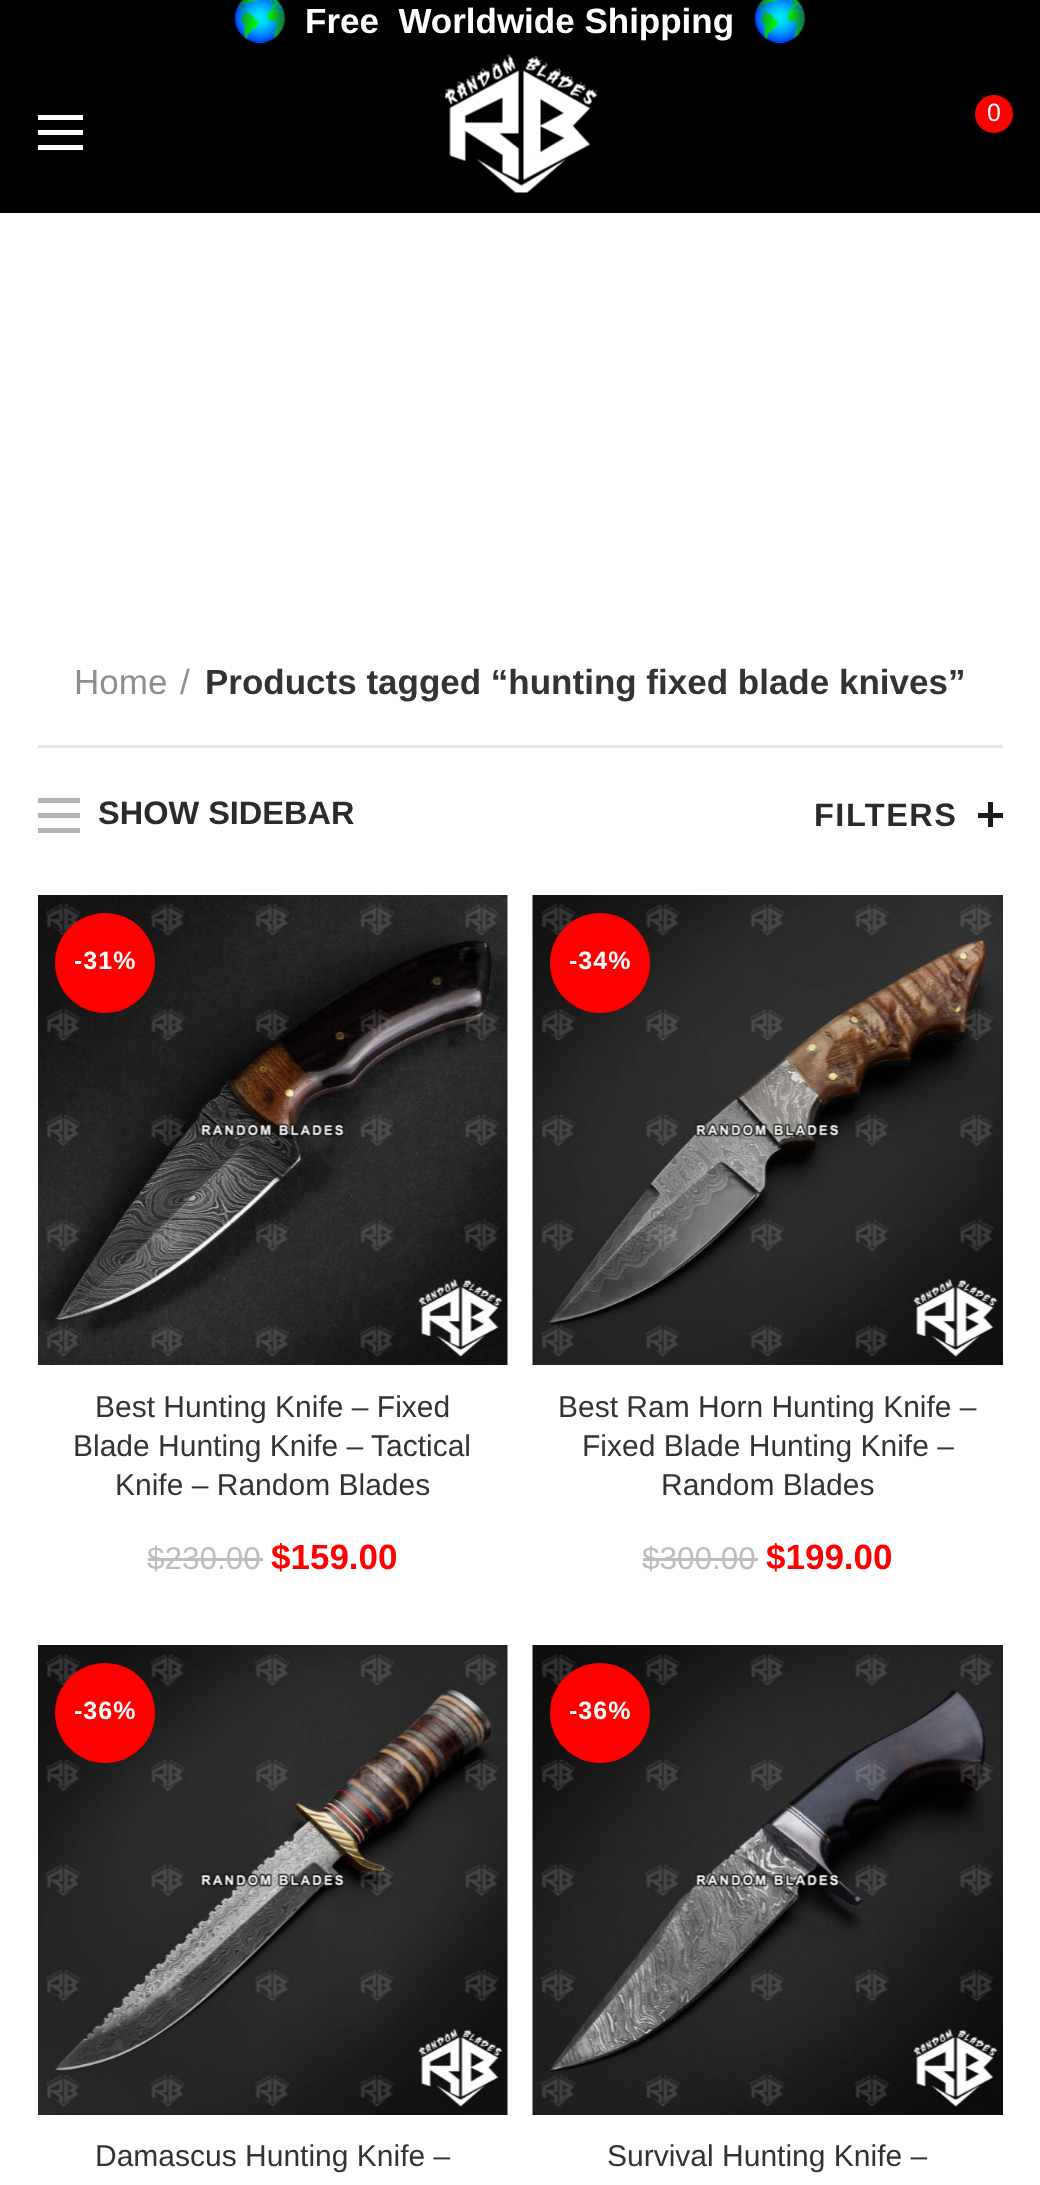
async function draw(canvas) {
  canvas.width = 1040
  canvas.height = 2185
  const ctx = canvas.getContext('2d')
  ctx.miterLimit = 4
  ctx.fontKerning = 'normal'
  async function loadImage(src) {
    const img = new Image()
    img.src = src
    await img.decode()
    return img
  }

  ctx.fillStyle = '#fff'
  ctx.fillRect(0, 0, 1040, 2185)
  ctx.fillStyle = '#000'
  ctx.fillRect(0, 0, 1040, 213)
  ctx.drawImage(await loadImage('image0.png'), 234, 0, 52, 43)
  ctx.font = 'bold 35px Liberation Sans'
  ctx.fillStyle = '#fff'
  ctx.fillText('Free  Worldwide Shipping', 305, 33)
  ctx.drawImage(await loadImage('image0.png'), 754, 0, 52, 43)
  ctx.drawImage(await loadImage('image1.png'), 444, 54, 154, 139)
  ctx.fillStyle = '#f00'
  ctx.beginPath()
  ctx.arc(994, 114, 19, 0, 2 * Math.PI)
  ctx.fill()
  ctx.font = '25px Liberation Sans'
  ctx.fillStyle = '#fff'
  ctx.fillText('0', 987, 121)
  ctx.fillRect(38, 130, 45, 5)
  ctx.fillRect(38, 115, 45, 5)
  ctx.fillRect(38, 145, 45, 5)
  ctx.fillStyle = '#e6e6e6'
  ctx.fillRect(38, 745, 965, 3)
  ctx.font = '35px Liberation Sans'
  ctx.fillStyle = '#8e8e8e'
  ctx.fillText('Home', 74, 694)
  ctx.fillText('/', 180, 694)
  ctx.font = 'bold 35px Liberation Sans'
  ctx.fillStyle = '#333'
  ctx.fillText('Products tagged “hunting fixed blade knives”', 205, 694)
  ctx.fillStyle = '#b3b3b3'
  ctx.fillRect(38, 813, 42, 5)
  ctx.fillRect(38, 798, 42, 5)
  ctx.fillRect(38, 828, 42, 5)
  ctx.font = 'bold 32.5px Liberation Sans'
  ctx.fillStyle = '#2d2a2a'
  ctx.fillText('SHOW SIDEBAR', 98, 824)
  ctx.letterSpacing = '1.5px'
  ctx.fillText('FILTERS', 814, 826)
  ctx.fillStyle = '#1b1919'
  ctx.fillRect(988, 802, 5, 25)
  ctx.fillRect(978, 813, 25, 5)
  ctx.drawImage(await loadImage('image2.png'), 38, 895, 470, 470)
  ctx.fillStyle = '#f00'
  ctx.beginPath()
  ctx.arc(105, 963, 50, 0, 2 * Math.PI)
  ctx.fill()
  ctx.letterSpacing = '1px'
  ctx.font = 'bold 25px Liberation Sans'
  ctx.fillStyle = '#fff'
  ctx.fillText('-31%', 74, 969)
  ctx.letterSpacing = '0px'
  ctx.font = '30px Liberation Sans'
  ctx.fillStyle = '#333'
  ctx.fillText('Best Hunting Knife – Fixed', 95, 1417)
  ctx.fillText('Blade Hunting Knife – Tactical', 73, 1456)
  ctx.fillText('Knife – Random Blades', 115, 1495)
  ctx.font = '31.5px Liberation Sans'
  ctx.fillStyle = '#bdbdbd'
  ctx.fillText('$230.00', 147, 1569)
  ctx.fillRect(148, 1558, 115, 3)
  ctx.font = 'bold 35px Liberation Sans'
  ctx.fillStyle = '#f00'
  ctx.fillText('$159.00', 271, 1569)
  ctx.drawImage(await loadImage('image3.png'), 532, 895, 471, 470)
  ctx.beginPath()
  ctx.arc(600, 963, 50, 0, 2 * Math.PI)
  ctx.fill()
  ctx.letterSpacing = '1px'
  ctx.font = 'bold 25px Liberation Sans'
  ctx.fillStyle = '#fff'
  ctx.fillText('-34%', 569, 969)
  ctx.letterSpacing = '0px'
  ctx.font = '30px Liberation Sans'
  ctx.fillStyle = '#333'
  ctx.fillText('Best Ram Horn Hunting Knife –', 558, 1417)
  ctx.fillText('Fixed Blade Hunting Knife –', 582, 1456)
  ctx.fillText('Random Blades', 661, 1495)
  ctx.font = '31.5px Liberation Sans'
  ctx.fillStyle = '#bdbdbd'
  ctx.fillText('$300.00', 642, 1569)
  ctx.fillRect(643, 1558, 115, 3)
  ctx.font = 'bold 35px Liberation Sans'
  ctx.fillStyle = '#f00'
  ctx.fillText('$199.00', 766, 1569)
  ctx.drawImage(await loadImage('image4.png'), 38, 1645, 470, 470)
  ctx.beginPath()
  ctx.arc(105, 1713, 50, 0, 2 * Math.PI)
  ctx.fill()
  ctx.letterSpacing = '1px'
  ctx.font = 'bold 25px Liberation Sans'
  ctx.fillStyle = '#fff'
  ctx.fillText('-36%', 74, 1719)
  ctx.letterSpacing = '0px'
  ctx.font = '30px Liberation Sans'
  ctx.fillStyle = '#333'
  ctx.fillText('Damascus Hunting Knife –', 95, 2166)
  ctx.drawImage(await loadImage('image5.png'), 532, 1645, 471, 470)
  ctx.fillStyle = '#f00'
  ctx.beginPath()
  ctx.arc(600, 1713, 50, 0, 2 * Math.PI)
  ctx.fill()
  ctx.letterSpacing = '1px'
  ctx.font = 'bold 25px Liberation Sans'
  ctx.fillStyle = '#fff'
  ctx.fillText('-36%', 569, 1719)
  ctx.letterSpacing = '0px'
  ctx.font = '30px Liberation Sans'
  ctx.fillStyle = '#333'
  ctx.fillText('Survival Hunting Knife –', 607, 2166)
}

draw(document.querySelector('canvas'))
